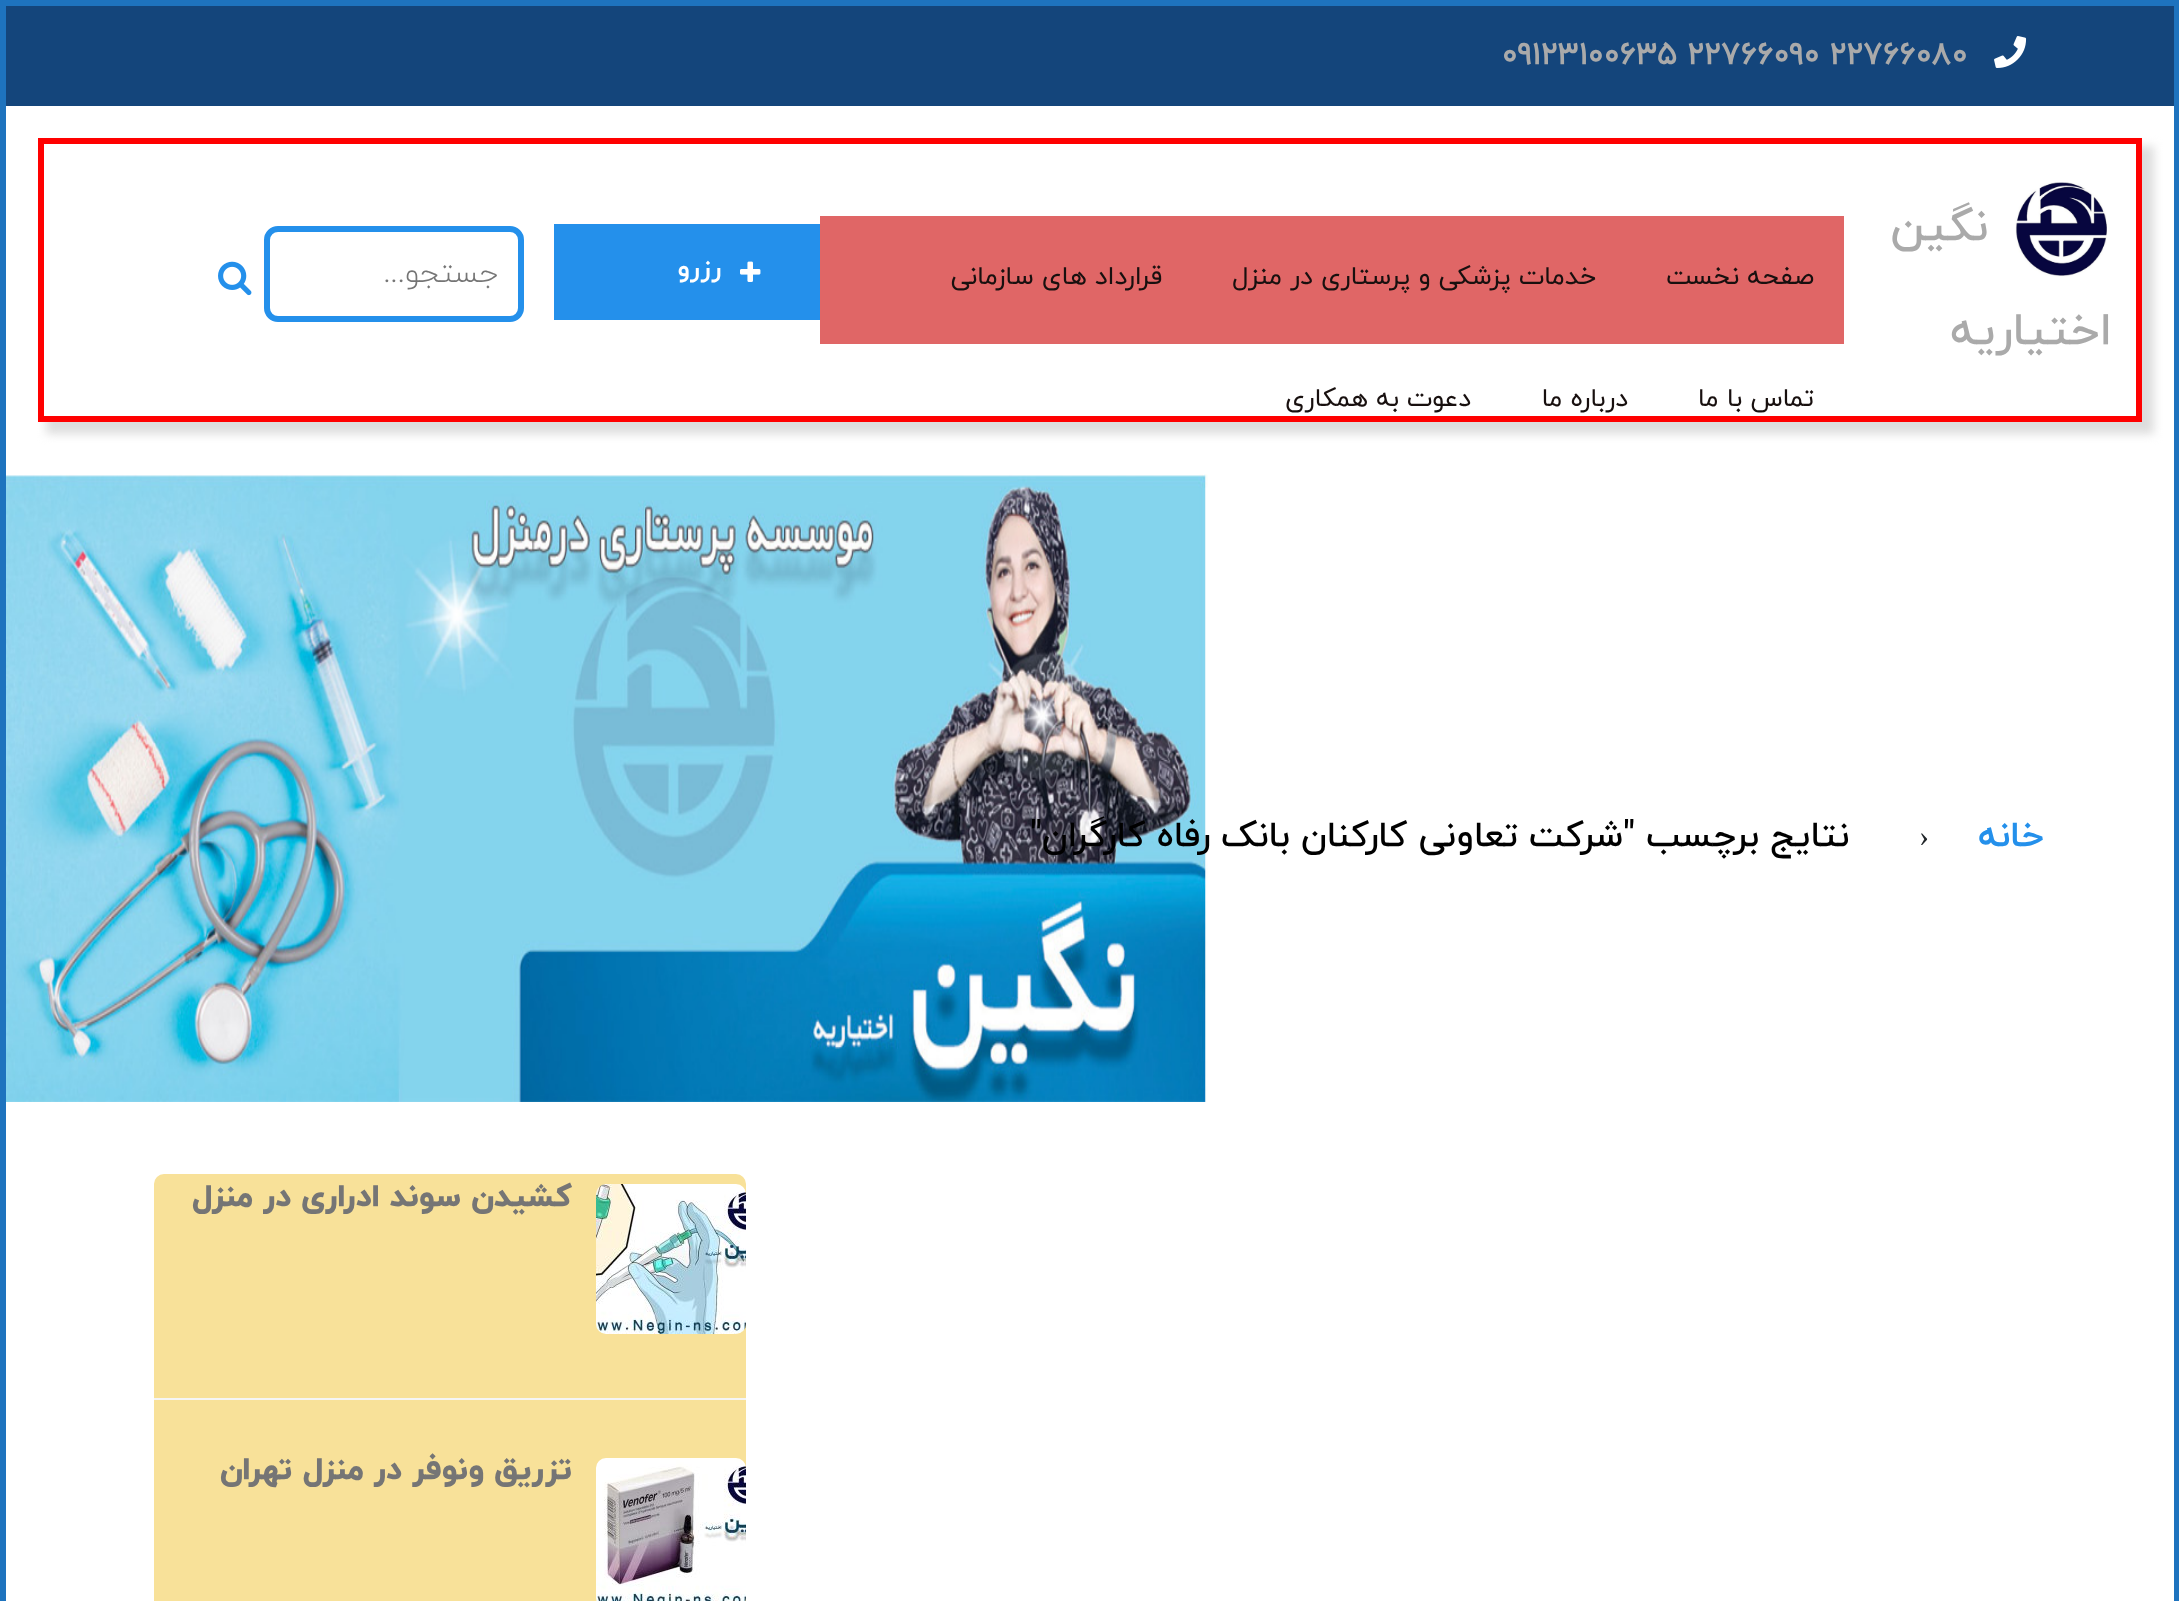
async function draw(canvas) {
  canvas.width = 2179
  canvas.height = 1601
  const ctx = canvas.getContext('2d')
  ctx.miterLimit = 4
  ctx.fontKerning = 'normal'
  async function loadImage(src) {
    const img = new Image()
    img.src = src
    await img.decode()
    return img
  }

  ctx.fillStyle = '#fff'
  ctx.fillRect(0, 0, 2179, 1601)
  ctx.strokeStyle = '#1e73be'
  ctx.lineWidth = 6
  ctx.strokeRect(3, 3, 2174, 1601)
  ctx.fillStyle = '#14457b'
  ctx.fillRect(6, 6, 2168, 100)
  ctx.drawImage(await loadImage('image0.png'), 1994, 36, 33, 32)
  ctx.font = 'bold 32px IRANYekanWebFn'
  ctx.fillStyle = '#aaa'
  ctx.fillText('09123100635 22766090 22766080', 1502, 64)
  ctx.fillStyle = '#ddd'
  ctx.filter = 'blur(5px)'
  ctx.beginPath()
  ctx.rect(46, 146, 2108, 288)
  ctx.fill()
  ctx.filter = 'none'
  ctx.strokeStyle = '#f00'
  ctx.strokeRect(41, 141, 2098, 278)
  ctx.fillStyle = '#fff'
  ctx.fillRect(44, 144, 2092, 272)
  ctx.drawImage(await loadImage('image1.png'), 2015, 182, 92, 95)
  ctx.direction = 'rtl'
  ctx.font = '500 46px IRANYekanWebFn'
  ctx.fillStyle = '#aaa'
  ctx.fillText('نگین', 1988, 240)
  ctx.fillText('اختیاریه', 2112, 344)
  ctx.fillStyle = '#e06666'
  ctx.fillRect(820, 216, 1024, 128)
  ctx.font = '26px IRANYekanWebFn'
  ctx.fillStyle = '#18100f'
  ctx.fillText('صفحه نخست', 1814, 284)
  ctx.fillText('خدمات پزشکی و پرستاری در منزل', 1596, 284)
  ctx.fillText('قرارداد های سازمانی', 1162, 284)
  ctx.fillText('تماس با ما', 1814, 406)
  ctx.fillText('درباره ما', 1628, 406)
  ctx.fillText('دعوت به همکاری', 1471, 406)
  ctx.fillStyle = '#2490eb'
  ctx.fillRect(554, 224, 266, 96)
  ctx.drawImage(await loadImage('image2.png'), 740, 261, 21, 21)
  ctx.font = 'bold 26px IRANYekanWebFn'
  ctx.fillStyle = '#fff'
  ctx.fillText('رزرو', 721, 276)
  ctx.beginPath()
  ctx.roundRect(267, 229, 254, 90, 11)
  ctx.strokeStyle = '#2490eb'
  ctx.stroke()
  ctx.font = '300 30px IRANYekanWebFn'
  ctx.fillStyle = '#757575'
  ctx.fillText('جستجو...', 498, 282)
  ctx.drawImage(await loadImage('image3.png'), 218, 261, 34, 35)
  ctx.font = 'bold 36px IRANYekanWebFn'
  ctx.fillStyle = '#2490eb'
  ctx.fillText('خانه', 2044, 846)
  ctx.direction = 'ltr'
  ctx.font = '30px Liberation Serif'
  ctx.fillStyle = '#212529'
  ctx.fillText('›', 1919, 846)
  ctx.drawImage(await loadImage('image4.png'), 6, 474, 1202, 628)
  ctx.direction = 'rtl'
  ctx.font = '500 36px IRANYekanWebFn'
  ctx.fillStyle = '#000'
  ctx.fillText('نتایج برچسب "شرکت تعاونی کارکنان بانک رفاه کارگران"', 1849, 846)
  ctx.fillStyle = '#f8e199'
  ctx.beginPath()
  ctx.roundRect(154, 1174, 592, 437, 10)
  ctx.fill()
  ctx.fillStyle = '#f5f5f5'
  ctx.fillRect(154, 1398, 592, 2)
  ctx.drawImage(await loadImage('image5.png'), 596, 1184, 150, 150)
  ctx.font = '800 32px IRANYekanWebFn'
  ctx.fillStyle = '#757575'
  ctx.fillText('کشیدن سوند ادراری در منزل', 572, 1206)
  ctx.drawImage(await loadImage('image6.png'), 596, 1458, 150, 143)
  ctx.fillText('تزریق ونوفر در منزل تهران', 572, 1479)
}

draw(document.querySelector('canvas'))
